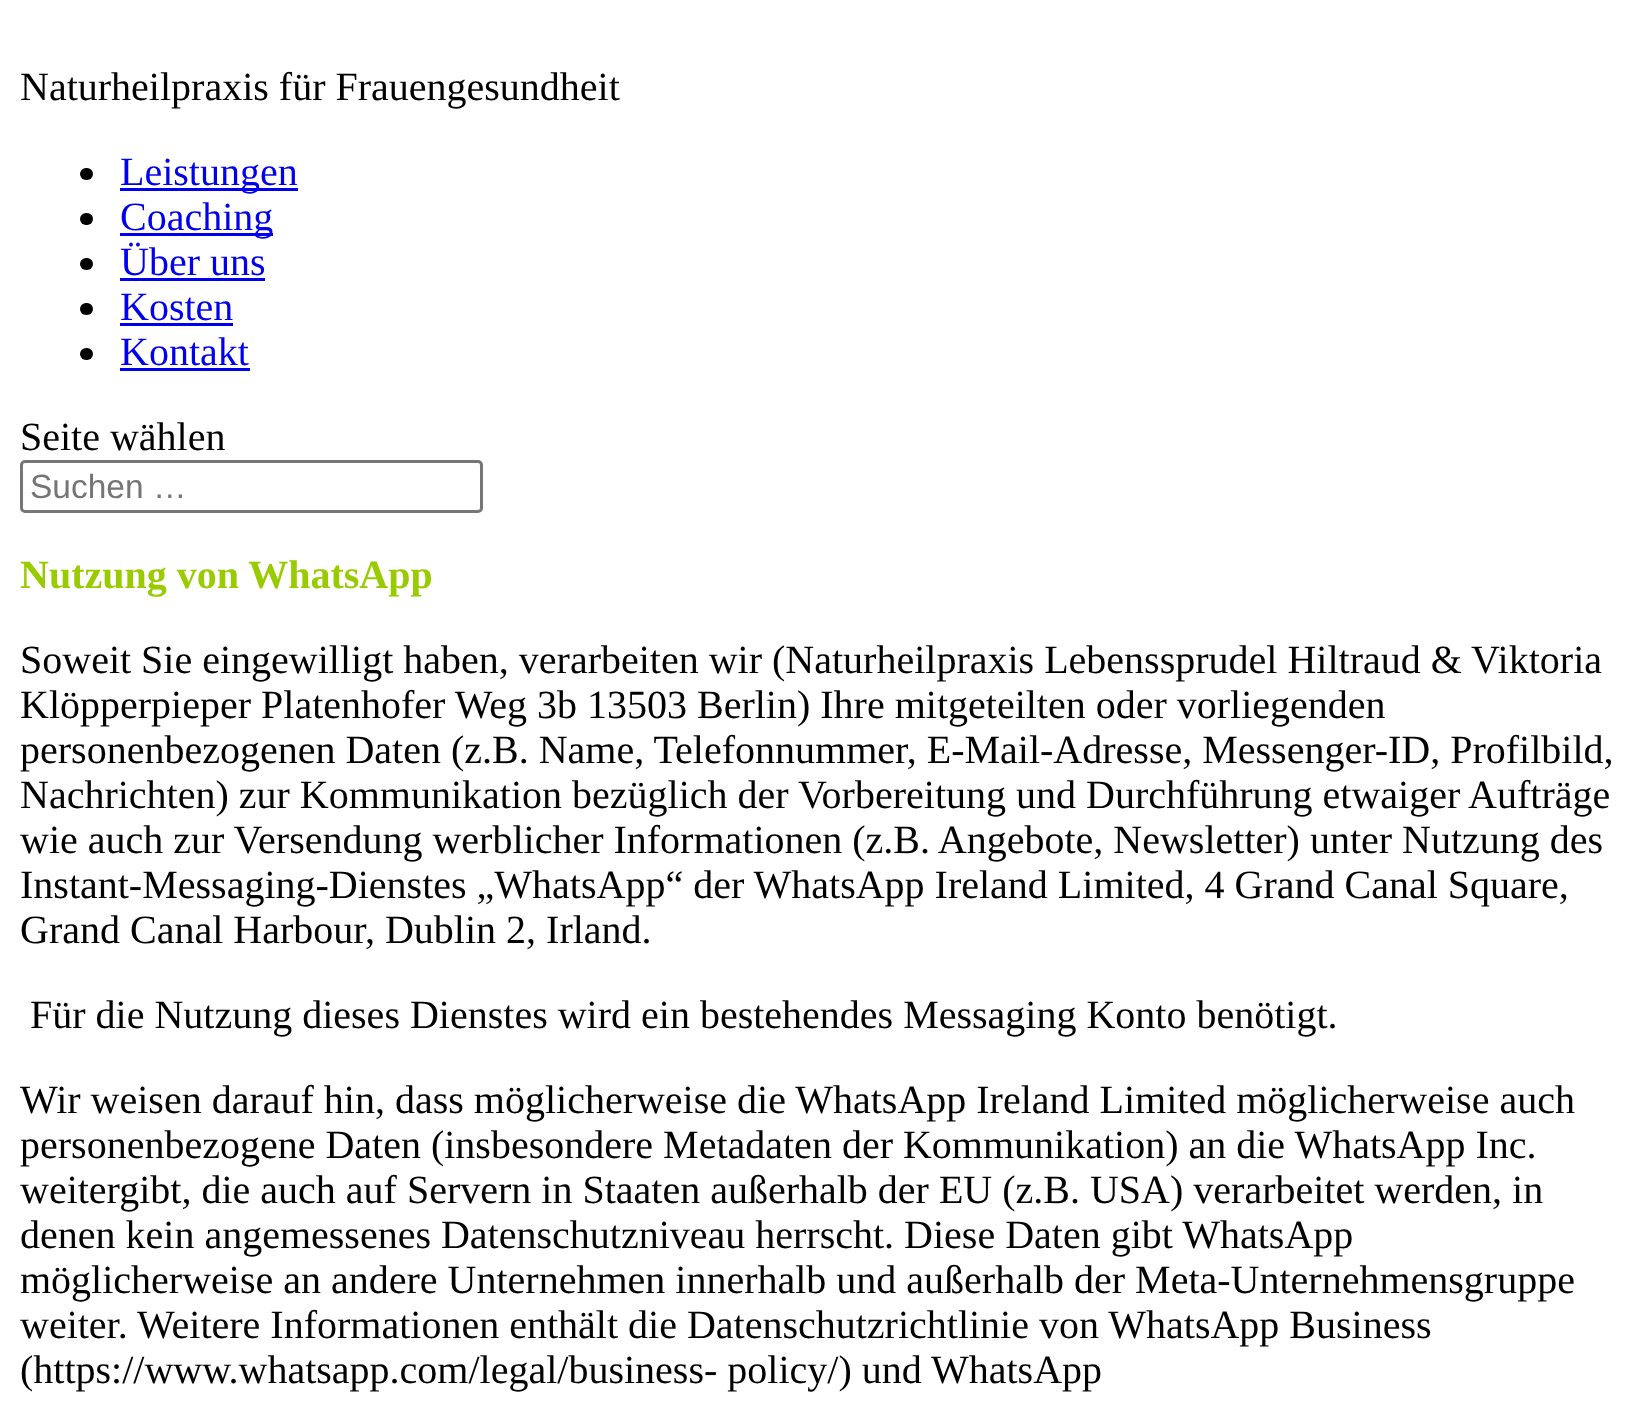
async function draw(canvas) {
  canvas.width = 1635
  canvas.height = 1401
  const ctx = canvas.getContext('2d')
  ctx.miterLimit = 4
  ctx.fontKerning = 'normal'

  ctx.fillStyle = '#fff'
  ctx.fillRect(0, 0, 1635, 1401)
  ctx.font = '40px Liberation Serif'
  ctx.fillStyle = '#000'
  ctx.fillText('Naturheilpraxis für Frauengesundheit', 20, 100)
  ctx.beginPath()
  ctx.roundRect(80, 168, 13, 12, 6)
  ctx.fill()
  ctx.fillStyle = '#00e'
  ctx.fillRect(120, 188, 178, 3)
  ctx.fillText('Leistungen', 120, 185)
  ctx.fillStyle = '#000'
  ctx.beginPath()
  ctx.roundRect(80, 213, 13, 12, 6)
  ctx.fill()
  ctx.fillStyle = '#00e'
  ctx.fillRect(120, 233, 153, 3)
  ctx.fillText('Coaching', 120, 230)
  ctx.fillStyle = '#000'
  ctx.beginPath()
  ctx.roundRect(80, 258, 13, 12, 6)
  ctx.fill()
  ctx.fillStyle = '#00e'
  ctx.fillText('Über uns', 120, 275)
  ctx.fillRect(120, 278, 145, 3)
  ctx.fillStyle = '#000'
  ctx.beginPath()
  ctx.roundRect(80, 303, 13, 12, 6)
  ctx.fill()
  ctx.fillStyle = '#00e'
  ctx.fillText('Kosten', 120, 320)
  ctx.fillRect(120, 323, 113, 3)
  ctx.fillStyle = '#000'
  ctx.beginPath()
  ctx.roundRect(80, 348, 13, 12, 6)
  ctx.fill()
  ctx.fillStyle = '#00e'
  ctx.fillText('Kontakt', 120, 365)
  ctx.fillRect(120, 368, 130, 3)
  ctx.fillStyle = '#000'
  ctx.fillText('Seite wählen', 20, 450)
  ctx.beginPath()
  ctx.roundRect(21.5, 461.5, 460, 50, 3.5)
  ctx.strokeStyle = '#767676'
  ctx.lineWidth = 3
  ctx.stroke()
  ctx.font = '33.5px Liberation Sans'
  ctx.fillStyle = '#757575'
  ctx.fillText('Suchen …', 30, 498)
  ctx.font = 'bold 40px Liberation Serif'
  ctx.fillStyle = '#9c0'
  ctx.fillText('Nutzung von WhatsApp', 20, 588)
  ctx.font = '40px Liberation Serif'
  ctx.fillStyle = '#000'
  ctx.fillText('Soweit Sie eingewilligt haben, verarbeiten wir (Naturheilpraxis Lebenssprudel Hiltraud & Viktoria', 20, 673)
  ctx.fillText('Klöpperpieper Platenhofer Weg 3b 13503 Berlin) Ihre mitgeteilten oder vorliegenden', 20, 718)
  ctx.fillText('personenbezogenen Daten (z.B. Name, Telefonnummer, E-Mail-Adresse, Messenger-ID, Profilbild,', 20, 763)
  ctx.fillText('Nachrichten) zur Kommunikation bezüglich der Vorbereitung und Durchführung etwaiger Aufträge', 20, 808)
  ctx.fillText('wie auch zur Versendung werblicher Informationen (z.B. Angebote, Newsletter) unter Nutzung des', 20, 853)
  ctx.fillText('Instant-Messaging-Dienstes „WhatsApp“ der WhatsApp Ireland Limited, 4 Grand Canal Square,', 20, 898)
  ctx.fillText('Grand Canal Harbour, Dublin 2, Irland.', 20, 943)
  ctx.fillText('Für die Nutzung dieses Dienstes wird ein bestehendes Messaging Konto benötigt.', 30, 1028)
  ctx.fillText('Wir weisen darauf hin, dass möglicherweise die WhatsApp Ireland Limited möglicherweise auch', 20, 1113)
  ctx.fillText('personenbezogene Daten (insbesondere Metadaten der Kommunikation) an die WhatsApp Inc.', 20, 1158)
  ctx.fillText('weitergibt, die auch auf Servern in Staaten außerhalb der EU (z.B. USA) verarbeitet werden, in', 20, 1203)
  ctx.fillText('denen kein angemessenes Datenschutzniveau herrscht. Diese Daten gibt WhatsApp', 20, 1248)
  ctx.fillText('möglicherweise an andere Unternehmen innerhalb und außerhalb der Meta-Unternehmensgruppe', 20, 1293)
  ctx.fillText('weiter. Weitere Informationen enthält die Datenschutzrichtlinie von WhatsApp Business', 20, 1338)
  ctx.fillText('(https://www.whatsapp.com/legal/business- policy/) und WhatsApp', 20, 1383)
}

draw(document.querySelector('canvas'))
